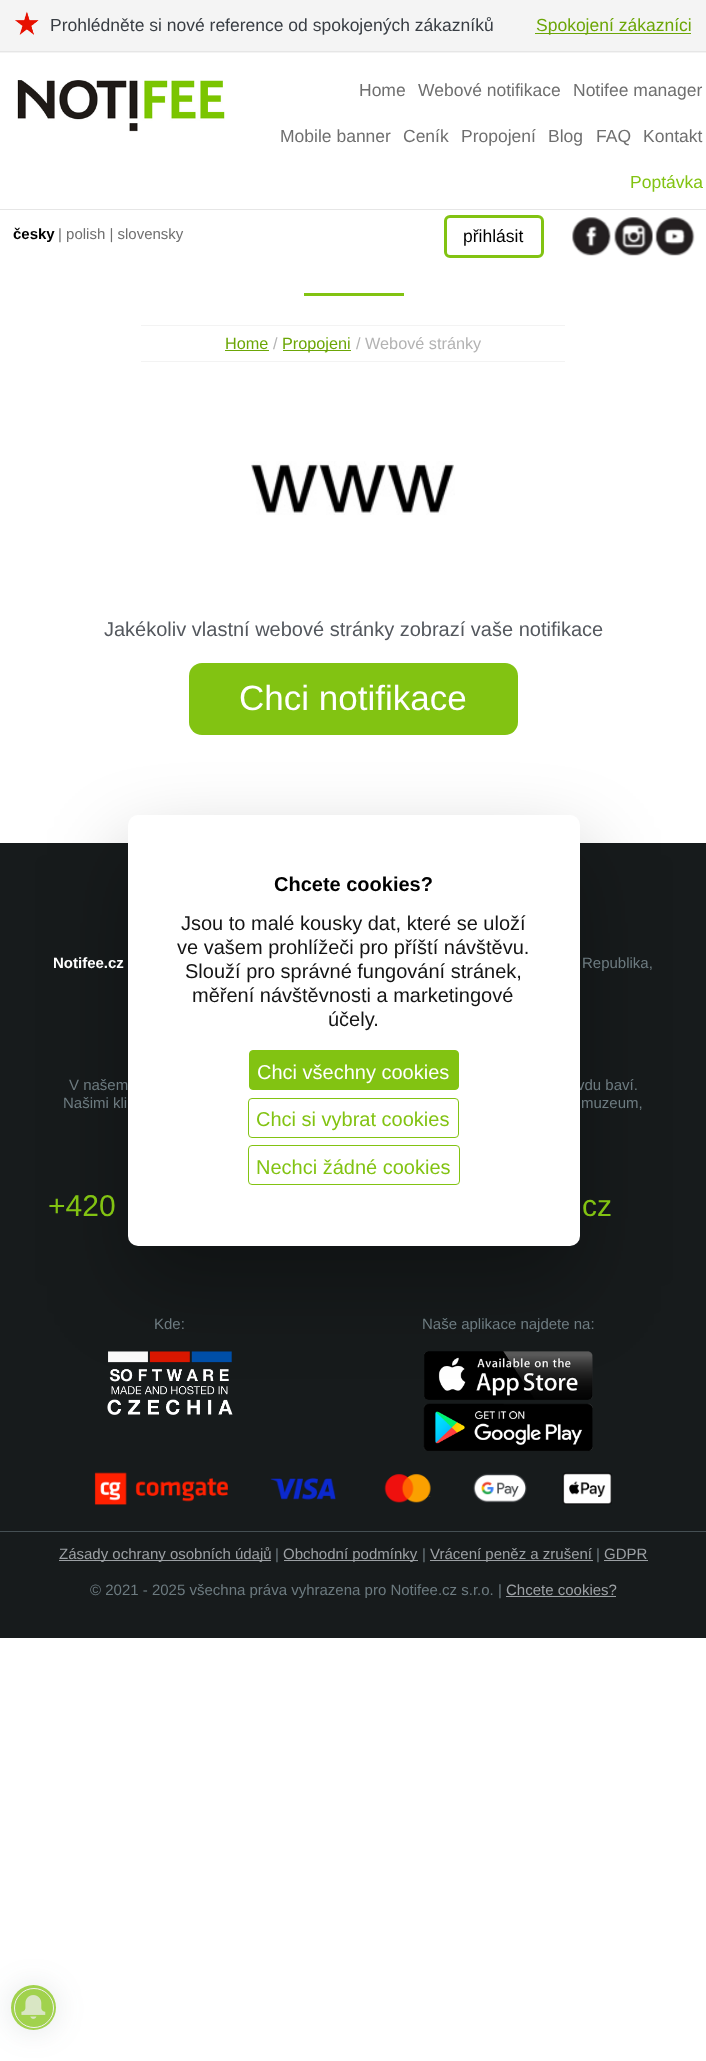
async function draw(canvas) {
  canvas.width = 706
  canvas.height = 2061
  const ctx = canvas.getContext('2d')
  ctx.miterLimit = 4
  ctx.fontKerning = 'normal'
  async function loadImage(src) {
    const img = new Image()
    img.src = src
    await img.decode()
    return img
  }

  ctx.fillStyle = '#fff'
  ctx.fillRect(0, 0, 706, 2061)
  ctx.fillStyle = '#e6e6e6'
  ctx.fillRect(0, 209, 706, 1)
  ctx.fillStyle = '#f4f4f4'
  ctx.fillRect(0, 0, 706, 53)
  ctx.drawImage(await loadImage('image0.png'), 15, 11, 24, 24)
  ctx.fillStyle = '#e6e6e6'
  ctx.fillRect(0, 51, 706, 1)
  ctx.font = '17.5px Liberation Sans'
  ctx.fillStyle = '#383d43'
  ctx.fillText('Prohlédněte si nové reference od spokojených zákazníků', 50, 31)
  ctx.fillStyle = '#6ca607'
  ctx.fillRect(535, 33, 156, 1)
  ctx.fillText('Spokojení zákazníci', 536, 31)
  ctx.drawImage(await loadImage('image1.png'), 17, 80, 208, 52)
  ctx.fillStyle = '#6f6f6f'
  ctx.fillText('Home', 359, 96)
  ctx.fillText('Webové notifikace', 418, 96)
  ctx.fillText('Notifee manager', 573, 96)
  ctx.fillText('Mobile banner', 280, 142)
  ctx.fillText('Ceník', 403, 142)
  ctx.fillText('Propojení', 461, 142)
  ctx.fillText('Blog', 548, 142)
  ctx.fillText('FAQ', 596, 142)
  ctx.fillText('Kontakt', 643, 142)
  ctx.fillStyle = '#82c312'
  ctx.fillText('Poptávka', 630, 188)
  ctx.font = 'bold 15px Liberation Sans'
  ctx.fillStyle = '#000'
  ctx.fillText('česky', 13, 239)
  ctx.font = '15px Liberation Sans'
  ctx.fillStyle = '#6f6f6f'
  ctx.fillText('| polish | slovensky', 58, 239)
  ctx.beginPath()
  ctx.roundRect(445.5, 216.5, 97, 40, 4.5)
  ctx.strokeStyle = '#82c312'
  ctx.lineWidth = 3
  ctx.stroke()
  ctx.font = '17.5px Liberation Sans'
  ctx.fillStyle = '#000'
  ctx.fillText('přihlásit', 463, 242)
  ctx.drawImage(await loadImage('image2.png'), 572, 217, 39, 39)
  ctx.drawImage(await loadImage('image3.png'), 614, 217, 39, 39)
  ctx.drawImage(await loadImage('image4.png'), 655, 217, 40, 39)
  ctx.fillStyle = '#82c312'
  ctx.fillRect(304, 293, 100, 3)
  ctx.fillStyle = '#f3f3f3'
  ctx.fillRect(141, 325, 424, 1)
  ctx.fillRect(141, 361, 424, 1)
  ctx.font = '16.25px Liberation Sans'
  ctx.fillStyle = '#6ca607'
  ctx.fillText('Home', 225, 349)
  ctx.fillRect(225, 350, 44, 1)
  ctx.fillStyle = '#b3b3b3'
  ctx.fillText('/', 273, 349)
  ctx.fillStyle = '#6ca607'
  ctx.fillRect(283, 350, 68, 1)
  ctx.fillText('Propojeni', 282, 349)
  ctx.fillStyle = '#b3b3b3'
  ctx.fillText('/ Webové stránky', 356, 349)
  ctx.drawImage(await loadImage('image5.png'), 251, 461, 204, 54)
  ctx.font = '20px Liberation Sans'
  ctx.fillStyle = '#54585e'
  ctx.fillText('Jakékoliv vlastní webové stránky zobrazí vaše notifikace', 104, 636)
  ctx.fillStyle = '#82c312'
  ctx.beginPath()
  ctx.roundRect(189, 663, 329, 72, 13)
  ctx.fill()
  ctx.font = '35px Liberation Sans'
  ctx.fillStyle = '#fff'
  ctx.fillText('Chci notifikace', 239, 710)
  ctx.fillStyle = '#171b1c'
  ctx.fillRect(0, 843, 706, 795)
  ctx.drawImage(await loadImage('image6.png'), 107, 1351, 126, 64)
  ctx.drawImage(await loadImage('image7.png'), 424, 1351, 169, 49)
  ctx.drawImage(await loadImage('image8.png'), 423, 1403, 170, 48)
  ctx.fillStyle = '#0000004d'
  ctx.filter = 'blur(42.5px)'
  ctx.beginPath()
  ctx.roundRect(128, 855, 452, 431, 10)
  ctx.fill()
  ctx.filter = 'none'
  ctx.font = '15px Liberation Sans'
  ctx.fillStyle = '#6d7b80'
  ctx.fillText('vdu baví.', 577, 1090)
  ctx.fillStyle = '#fff'
  ctx.beginPath()
  ctx.roundRect(128, 815, 452, 431, 10)
  ctx.fill()
  ctx.font = 'bold 20px Liberation Sans'
  ctx.fillStyle = '#000'
  ctx.fillText('Chcete cookies?', 274, 891)
  ctx.font = '20px Liberation Sans'
  ctx.fillStyle = '#141414'
  ctx.fillText('Jsou to malé kousky dat, které se uloží', 181, 930)
  ctx.fillText('ve vašem prohlížeči pro příští návštěvu.', 177, 954)
  ctx.fillText('Slouží pro správné fungování stránek,', 185, 978)
  ctx.fillText('měření návštěvnosti a marketingové', 192, 1002)
  ctx.fillText('účely.', 328, 1026)
  ctx.fillStyle = '#82c312'
  ctx.beginPath()
  ctx.roundRect(249.5, 1050.5, 209, 39, 3.5)
  ctx.fill()
  ctx.lineWidth = 1
  ctx.stroke()
  ctx.fillStyle = '#fff'
  ctx.fillText('Chci všechny cookies', 257, 1079)
  ctx.beginPath()
  ctx.roundRect(248.5, 1098.5, 210, 39, 3.5)
  ctx.stroke()
  ctx.fillStyle = '#82c312'
  ctx.fillText('Chci si vybrat cookies', 256, 1126)
  ctx.beginPath()
  ctx.roundRect(248.5, 1145.5, 211, 39, 3.5)
  ctx.stroke()
  ctx.fillText('Nechci žádné cookies', 256, 1174)
  ctx.font = 'bold 15px Liberation Sans'
  ctx.fillStyle = '#fff'
  ctx.fillText('Notifee.cz', 53, 968)
  ctx.font = '15px Liberation Sans'
  ctx.fillStyle = '#6d7b80'
  ctx.fillText('Republika,', 582, 968)
  ctx.fillText('V našem', 69, 1090)
  ctx.fillText('Našimi kli', 63, 1108)
  ctx.fillText('muzeum,', 581, 1108)
  ctx.font = '30px Liberation Sans'
  ctx.fillStyle = '#82c312'
  ctx.fillText('+420', 48, 1216)
  ctx.fillText('cz', 582, 1216)
  ctx.font = '15px Liberation Sans'
  ctx.fillStyle = '#6d7b80'
  ctx.fillText('Kde:', 154, 1329)
  ctx.fillText('Naše aplikace najdete na:', 422, 1329)
  ctx.drawImage(await loadImage('image9.png'), 94, 1472, 518, 33)
  ctx.fillStyle = '#454f53'
  ctx.fillRect(0, 1531, 706, 1)
  ctx.fillStyle = '#9ca0a4'
  ctx.fillRect(59, 1560, 212, 1)
  ctx.fillText('Zásady ochrany osobních údajů', 59, 1559)
  ctx.fillStyle = '#6d7b80'
  ctx.fillText('|', 275, 1559)
  ctx.fillStyle = '#9ca0a4'
  ctx.fillRect(284, 1560, 134, 1)
  ctx.fillText('Obchodní podmínky', 283, 1559)
  ctx.fillStyle = '#6d7b80'
  ctx.fillText('|', 422, 1559)
  ctx.fillStyle = '#9ca0a4'
  ctx.fillRect(430, 1560, 163, 1)
  ctx.fillText('Vrácení peněz a zrušení', 430, 1559)
  ctx.fillStyle = '#6d7b80'
  ctx.fillText('|', 596, 1559)
  ctx.fillStyle = '#9ca0a4'
  ctx.fillText('GDPR', 604, 1559)
  ctx.fillRect(604, 1560, 44, 1)
  ctx.fillStyle = '#6d7b80'
  ctx.fillText('© 2021 - 2025 všechna práva vyhrazena pro Notifee.cz s.r.o. |', 90, 1595)
  ctx.fillStyle = '#9ca0a4'
  ctx.fillText('Chcete cookies?', 506, 1595)
  ctx.fillRect(506, 1596, 110, 1)
  ctx.fillStyle = '#44546126'
  ctx.filter = 'blur(15px)'
  ctx.beginPath()
  ctx.roundRect(11, 1986, 45, 45, 22.5)
  ctx.fill()
  ctx.filter = 'none'
  ctx.fillStyle = '#a1d24d'
  ctx.beginPath()
  ctx.arc(33.5, 2007.5, 22.5, 0, 2 * Math.PI)
  ctx.fill()
  ctx.beginPath()
  ctx.arc(34, 2008, 19.5, 0, 2 * Math.PI)
  ctx.strokeStyle = '#f1f1f1'
  ctx.stroke()
  ctx.drawImage(await loadImage('image10.png'), 21, 1995, 25, 24)
}

draw(document.querySelector('canvas'))
